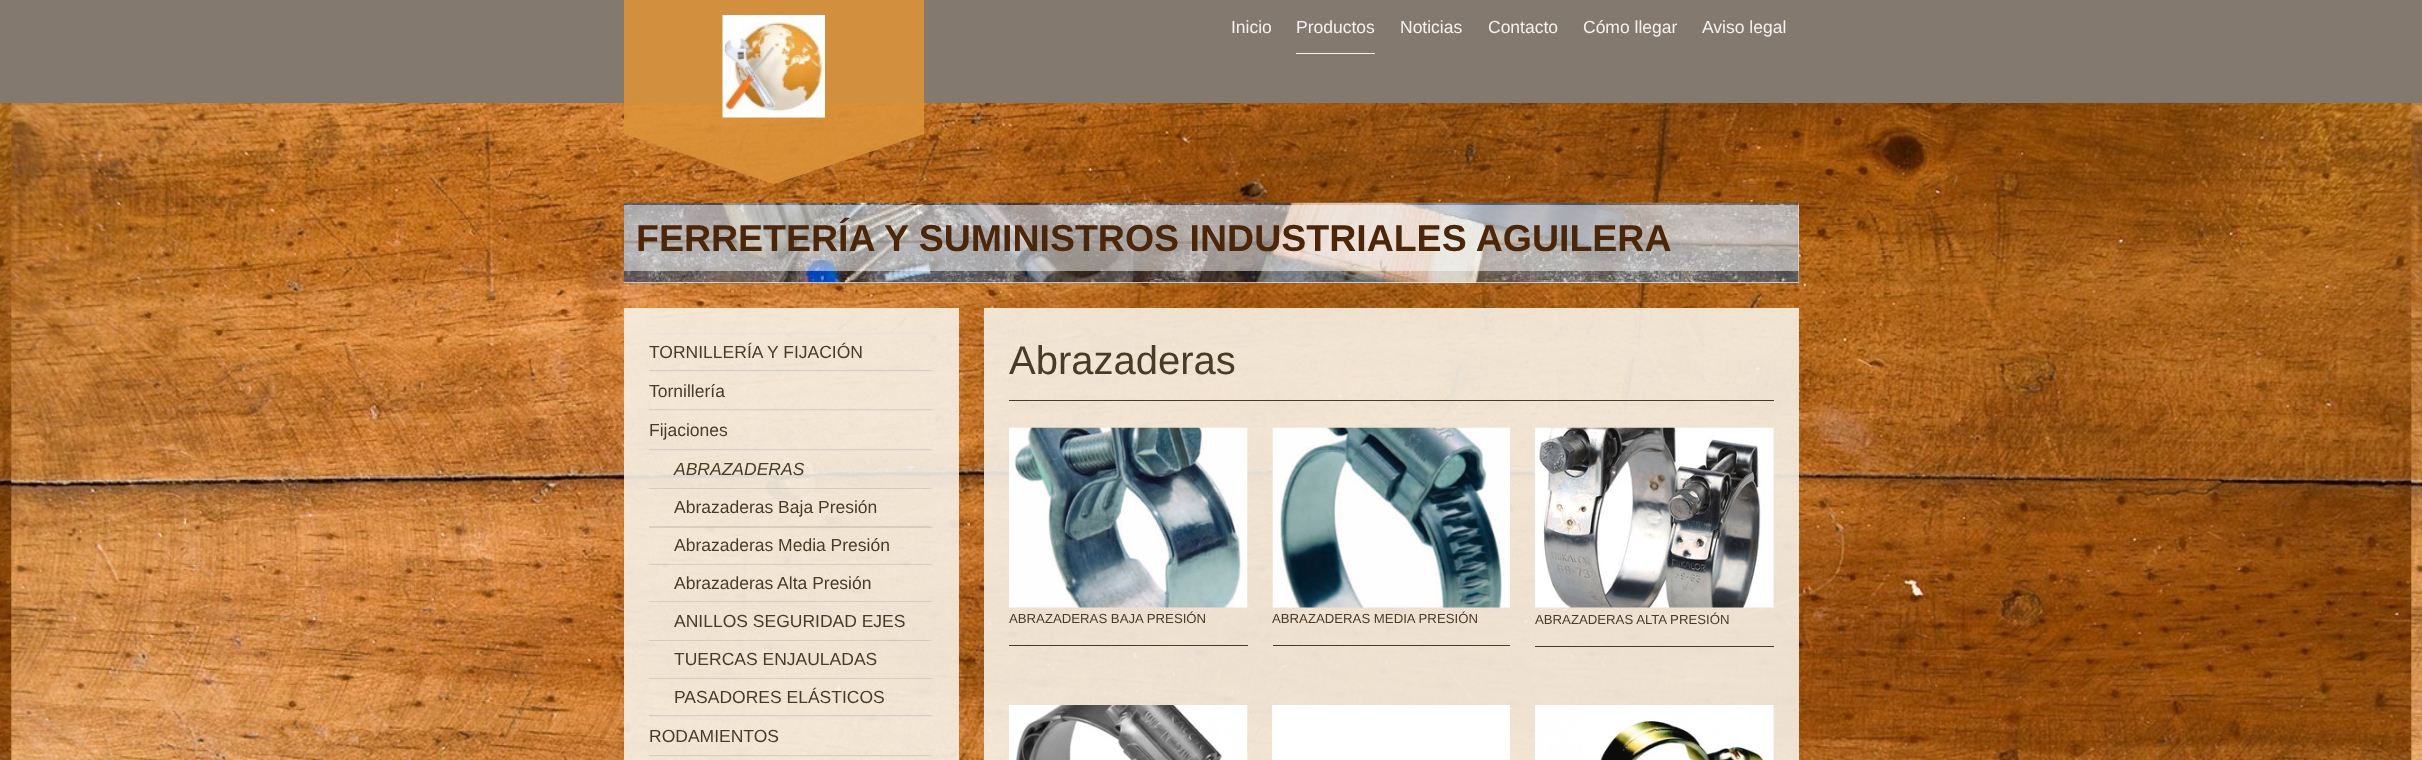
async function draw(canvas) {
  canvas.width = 2422
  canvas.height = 760
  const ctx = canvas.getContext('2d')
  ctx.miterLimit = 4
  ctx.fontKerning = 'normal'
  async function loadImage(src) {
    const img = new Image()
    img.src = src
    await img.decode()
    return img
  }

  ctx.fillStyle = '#fff'
  ctx.fillRect(0, 0, 2422, 760)
  ctx.drawImage(await loadImage('image0.png'), 0, 103, 2422, 657)
  ctx.fillStyle = '#84796e'
  ctx.fillRect(0, 0, 2422, 103)
  ctx.fillStyle = '#da9238e6'
  ctx.fillRect(624, 0, 300, 134)
  ctx.drawImage(await loadImage('image1.png'), 722, 15, 103, 103)
  ctx.beginPath()
  ctx.moveTo(624, 134)
  ctx.lineTo(924, 134)
  ctx.lineTo(774, 184)
  ctx.closePath()
  ctx.fill()
  ctx.font = '17.5px Liberation Sans'
  ctx.fillStyle = '#f3f2f1'
  ctx.fillText('Inicio', 1231, 33)
  ctx.fillRect(1296, 53, 79, 1)
  ctx.fillText('Productos', 1296, 33)
  ctx.fillText('Noticias', 1400, 33)
  ctx.fillText('Contacto', 1488, 33)
  ctx.fillText('Cómo llegar', 1583, 33)
  ctx.fillText('Aviso legal', 1702, 33)
  ctx.fillStyle = '#eee'
  ctx.fillRect(624, 203, 1175, 80)
  ctx.drawImage(await loadImage('image2.png'), 623, 202, 1176, 81)
  ctx.fillStyle = '#ffffff80'
  ctx.fillRect(624, 205, 1175, 66)
  ctx.font = 'bold 37.5px Liberation Sans'
  ctx.fillStyle = '#4c2609'
  ctx.fillText('FERRETERÍA Y SUMINISTROS INDUSTRIALES AGUILERA', 636, 251)
  ctx.fillStyle = '#f7f1e6e6'
  ctx.fillRect(624, 308, 335, 452)
  ctx.fillStyle = '#e6e3de'
  ctx.fillRect(649, 333, 285, 1)
  ctx.fillRect(649, 371, 285, 1)
  ctx.fillStyle = '#0000001a'
  ctx.beginPath()
  ctx.moveTo(934, 371)
  ctx.lineTo(649, 371)
  ctx.lineTo(649, 370)
  ctx.lineTo(929, 370)
  ctx.closePath()
  ctx.fill()
  ctx.font = '17.5px Liberation Sans'
  ctx.fillStyle = '#483c26'
  ctx.fillText('TORNILLERÍA Y FIJACIÓN', 649, 358)
  ctx.fillStyle = '#e6e3de'
  ctx.fillRect(649, 410, 285, 1)
  ctx.fillStyle = '#0000001a'
  ctx.beginPath()
  ctx.moveTo(934, 410)
  ctx.lineTo(649, 410)
  ctx.lineTo(649, 409)
  ctx.lineTo(929, 409)
  ctx.closePath()
  ctx.fill()
  ctx.fillStyle = '#483c26'
  ctx.fillText('Tornillería', 649, 397)
  ctx.fillStyle = '#e6e3de'
  ctx.fillRect(649, 450, 285, 1)
  ctx.fillStyle = '#0000001a'
  ctx.beginPath()
  ctx.moveTo(934, 450)
  ctx.lineTo(649, 450)
  ctx.lineTo(649, 449)
  ctx.lineTo(929, 449)
  ctx.closePath()
  ctx.fill()
  ctx.fillStyle = '#483c26'
  ctx.fillText('Fijaciones', 649, 436)
  ctx.fillStyle = '#e6e3de'
  ctx.fillRect(649, 716, 285, 1)
  ctx.fillStyle = '#0000001a'
  ctx.beginPath()
  ctx.moveTo(934, 489)
  ctx.lineTo(649, 489)
  ctx.lineTo(649, 488)
  ctx.lineTo(929, 488)
  ctx.closePath()
  ctx.fill()
  ctx.font = 'italic 17.5px Liberation Sans'
  ctx.fillStyle = '#483c26'
  ctx.fillText('ABRAZADERAS', 674, 475)
  ctx.fillStyle = '#ebeae8'
  ctx.beginPath()
  ctx.moveTo(906, 466)
  ctx.lineTo(916, 466)
  ctx.lineTo(911, 470)
  ctx.closePath()
  ctx.fill()
  ctx.fillStyle = '#0000001a'
  ctx.beginPath()
  ctx.moveTo(934, 528)
  ctx.lineTo(649, 528)
  ctx.lineTo(649, 526)
  ctx.lineTo(929, 526)
  ctx.closePath()
  ctx.fill()
  ctx.font = '17.5px Liberation Sans'
  ctx.fillStyle = '#483c26'
  ctx.fillText('Abrazaderas Baja Presión', 674, 513)
  ctx.fillStyle = '#0000001a'
  ctx.beginPath()
  ctx.moveTo(934, 565)
  ctx.lineTo(649, 565)
  ctx.lineTo(649, 564)
  ctx.lineTo(929, 564)
  ctx.closePath()
  ctx.fill()
  ctx.fillStyle = '#483c26'
  ctx.fillText('Abrazaderas Media Presión', 674, 551)
  ctx.fillStyle = '#0000001a'
  ctx.beginPath()
  ctx.moveTo(934, 602)
  ctx.lineTo(649, 602)
  ctx.lineTo(649, 601)
  ctx.lineTo(929, 601)
  ctx.closePath()
  ctx.fill()
  ctx.fillStyle = '#483c26'
  ctx.fillText('Abrazaderas Alta Presión', 674, 589)
  ctx.fillStyle = '#0000001a'
  ctx.beginPath()
  ctx.moveTo(934, 641)
  ctx.lineTo(649, 641)
  ctx.lineTo(649, 640)
  ctx.lineTo(929, 640)
  ctx.closePath()
  ctx.fill()
  ctx.fillStyle = '#483c26'
  ctx.fillText('ANILLOS SEGURIDAD EJES', 674, 627)
  ctx.fillStyle = '#0000001a'
  ctx.beginPath()
  ctx.moveTo(934, 679)
  ctx.lineTo(649, 679)
  ctx.lineTo(649, 678)
  ctx.lineTo(929, 678)
  ctx.closePath()
  ctx.fill()
  ctx.fillStyle = '#483c26'
  ctx.fillText('TUERCAS ENJAULADAS', 674, 665)
  ctx.fillStyle = '#0000001a'
  ctx.beginPath()
  ctx.moveTo(934, 716)
  ctx.lineTo(649, 716)
  ctx.lineTo(649, 715)
  ctx.lineTo(929, 715)
  ctx.closePath()
  ctx.fill()
  ctx.fillStyle = '#483c26'
  ctx.fillText('PASADORES ELÁSTICOS', 674, 703)
  ctx.fillStyle = '#e6e3de'
  ctx.fillRect(649, 756, 285, 1)
  ctx.fillStyle = '#0000001a'
  ctx.beginPath()
  ctx.moveTo(934, 756)
  ctx.lineTo(649, 756)
  ctx.lineTo(649, 755)
  ctx.lineTo(929, 755)
  ctx.closePath()
  ctx.fill()
  ctx.fillStyle = '#483c26'
  ctx.fillText('RODAMIENTOS', 649, 742)
  ctx.fillStyle = '#f7f1e6e6'
  ctx.fillRect(984, 308, 815, 452)
  ctx.fillStyle = '#483c26'
  ctx.fillRect(1009, 400, 765, 1)
  ctx.font = '40px Liberation Sans'
  ctx.fillText('Abrazaderas', 1009, 374)
  ctx.drawImage(await loadImage('image3.png'), 1009, 427, 239, 181)
  ctx.font = '13.2px Liberation Sans'
  ctx.fillText('ABRAZADERAS BAJA PRESIÓN', 1009, 623)
  ctx.fillRect(1009, 645, 239, 1)
  ctx.drawImage(await loadImage('image4.png'), 1272, 427, 238, 181)
  ctx.fillText('ABRAZADERAS MEDIA PRESIÓN', 1272, 623)
  ctx.fillRect(1273, 645, 237, 1)
  ctx.drawImage(await loadImage('image5.png'), 1535, 427, 239, 181)
  ctx.fillText('ABRAZADERAS ALTA PRESIÓN', 1535, 624)
  ctx.fillRect(1535, 646, 239, 1)
  ctx.drawImage(await loadImage('image6.png'), 1009, 705, 239, 55)
  ctx.fillStyle = '#fff'
  ctx.fillRect(1272, 705, 238, 55)
  ctx.drawImage(await loadImage('image7.png'), 1535, 705, 239, 55)
}

draw(document.querySelector('canvas'))
